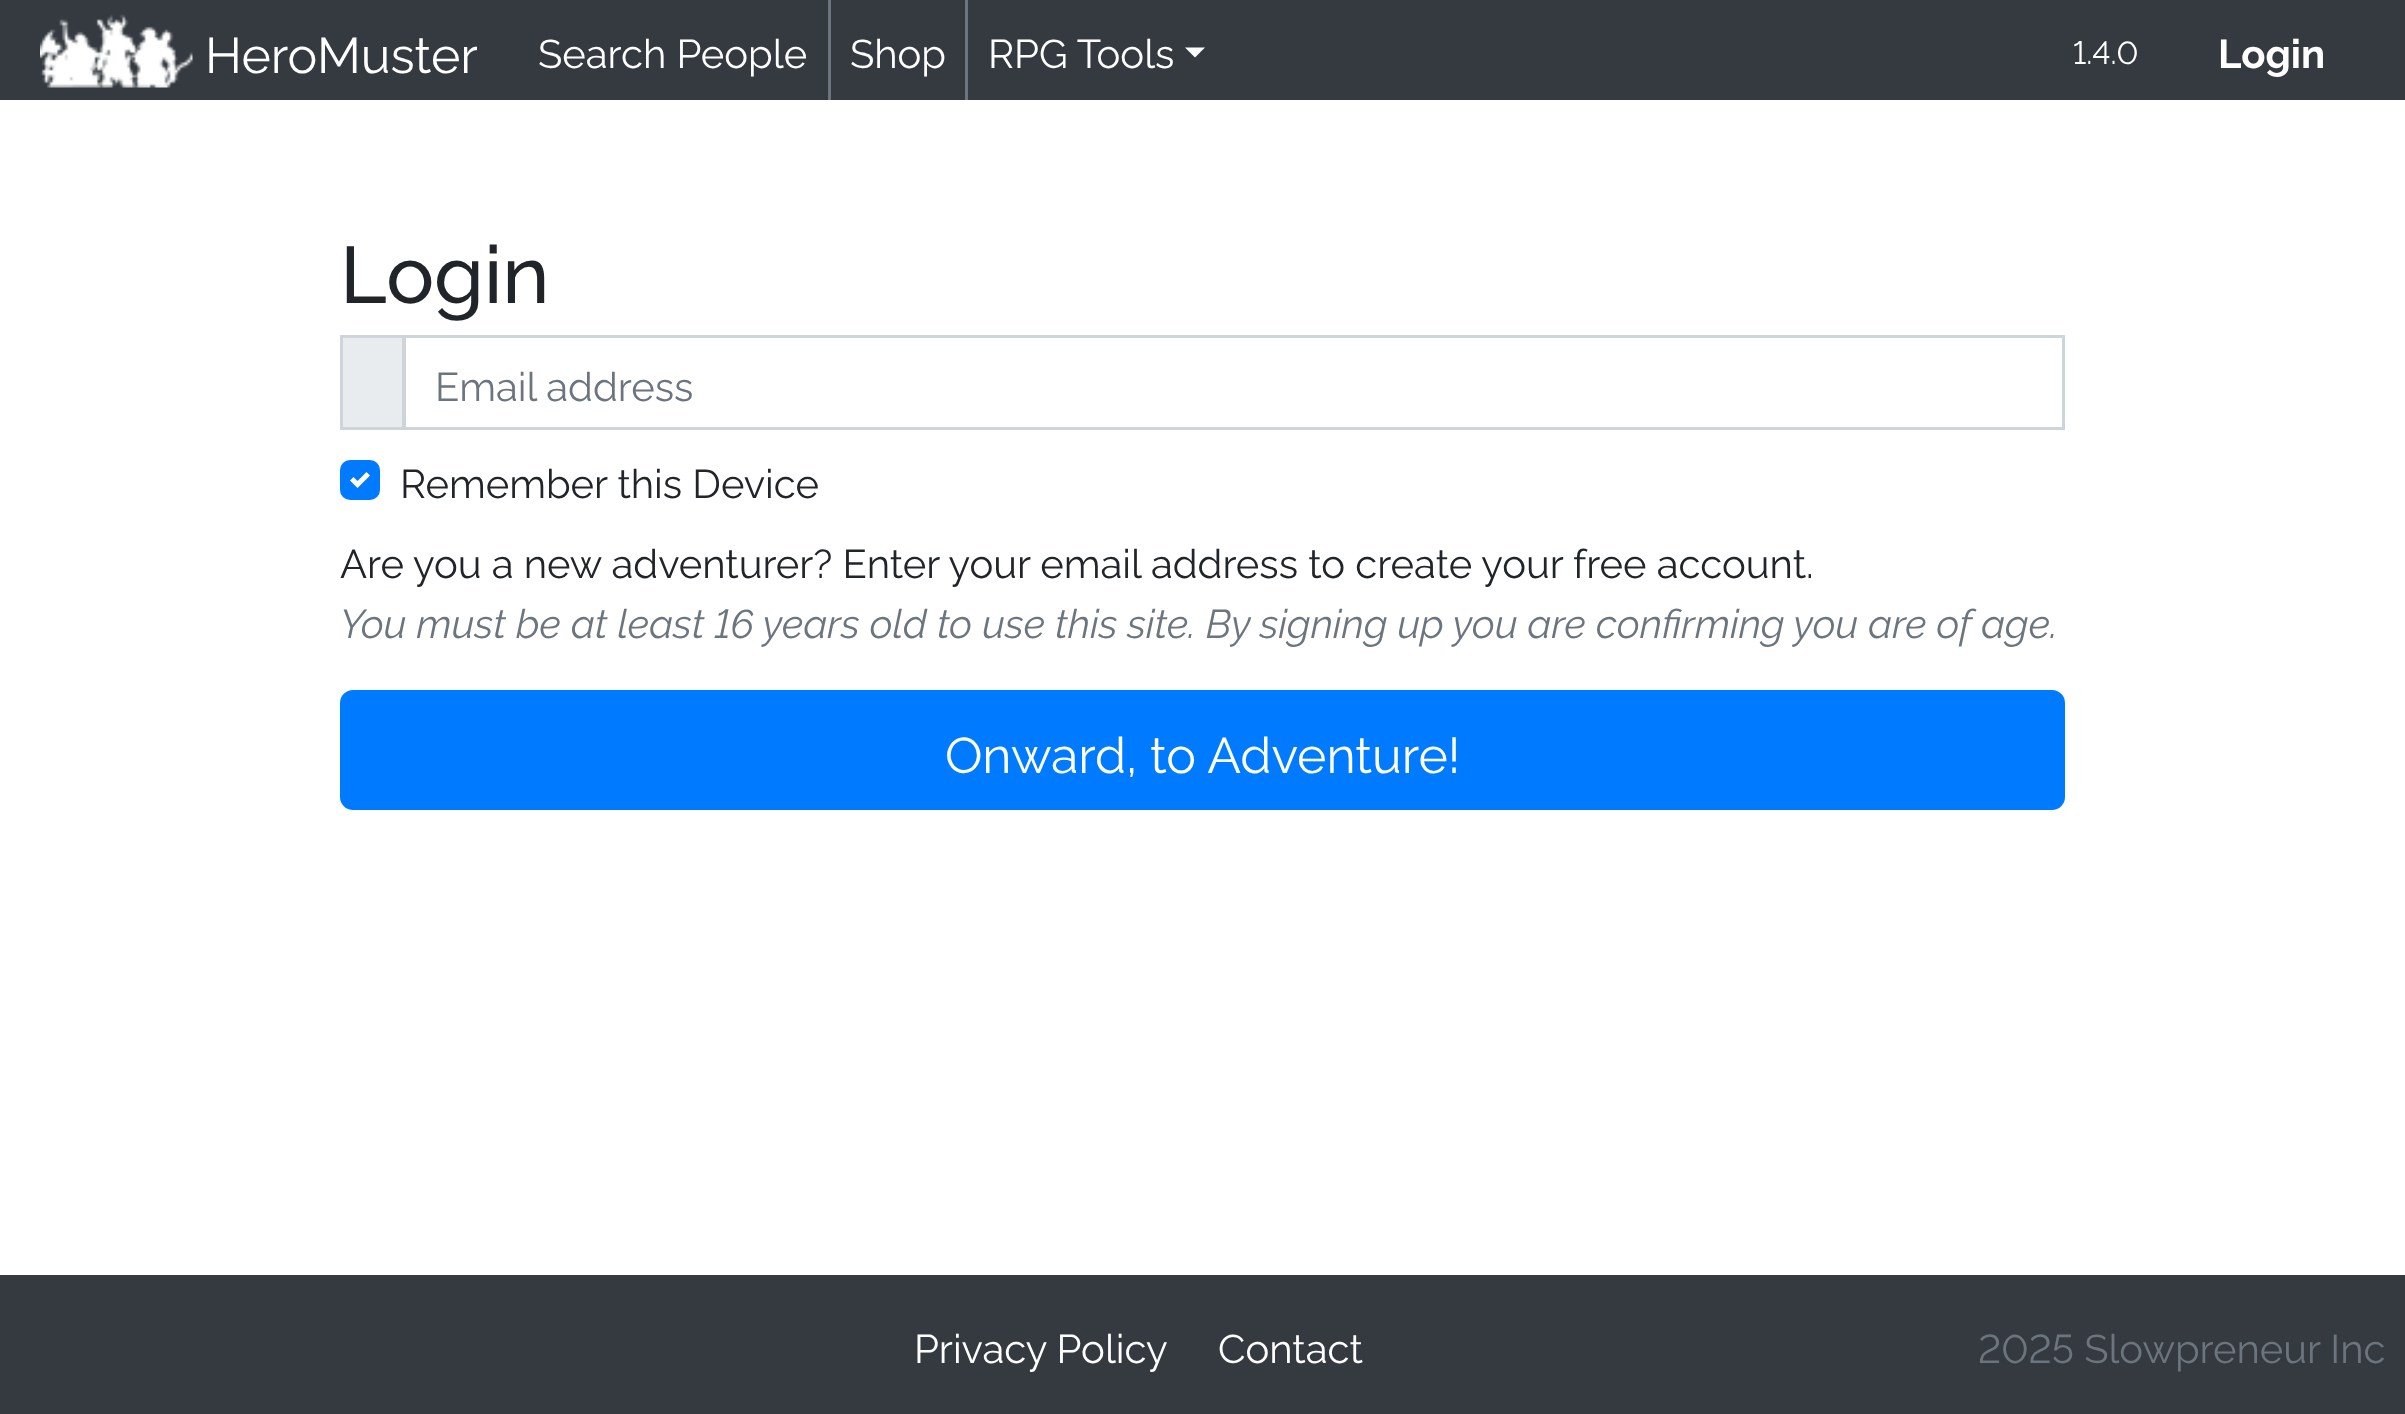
async function draw(canvas) {
  canvas.width = 2405
  canvas.height = 1414
  const ctx = canvas.getContext('2d')
  ctx.miterLimit = 4
  ctx.fontKerning = 'normal'
  async function loadImage(src) {
    const img = new Image()
    img.src = src
    await img.decode()
    return img
  }

  ctx.fillStyle = '#fff'
  ctx.fillRect(0, 0, 2405, 1414)
  ctx.fillStyle = '#343a40'
  ctx.fillRect(0, 0, 2405, 100)
  ctx.drawImage(await loadImage('image0.png'), 40, 14, 153, 74)
  ctx.font = '50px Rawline'
  ctx.fillStyle = '#fff'
  ctx.fillText('HeroMuster', 205, 73)
  ctx.fillStyle = '#6c757d'
  ctx.fillRect(828, 0, 3, 100)
  ctx.font = '40px Rawline'
  ctx.fillStyle = '#fff'
  ctx.fillText('Search People', 538, 68)
  ctx.fillStyle = '#6c757d'
  ctx.fillRect(965, 0, 3, 100)
  ctx.fillStyle = '#fff'
  ctx.fillText('Shop', 850, 68)
  ctx.fillText('RPG Tools', 988, 68)
  ctx.beginPath()
  ctx.moveTo(1185, 47.5)
  ctx.lineTo(1205, 47.5)
  ctx.lineTo(1195, 57.5)
  ctx.closePath()
  ctx.fill()
  ctx.font = '32px Rawline'
  ctx.fillText('1.4.0', 2073, 64)
  ctx.font = 'bold 40px Rawline'
  ctx.fillText('Login', 2218, 68)
  ctx.font = '500 80px Rawline'
  ctx.fillStyle = '#212529'
  ctx.fillText('Login', 340, 303)
  ctx.fillStyle = '#e9ecef'
  ctx.beginPath()
  ctx.rect(341.5, 336.5, 62, 92)
  ctx.fill()
  ctx.strokeStyle = '#ced4da'
  ctx.lineWidth = 3
  ctx.stroke()
  ctx.strokeRect(404.5, 336.5, 1659, 92)
  ctx.font = '40px Rawline'
  ctx.fillStyle = '#6c757d'
  ctx.fillText('Email address', 435, 401)
  ctx.fillStyle = '#007bff'
  ctx.beginPath()
  ctx.roundRect(340, 460, 40, 40, 10)
  ctx.fill()
  ctx.fillStyle = '#212529'
  ctx.fillText('Remember this Device', 400, 498)
  ctx.fillStyle = '#fff'
  ctx.beginPath()
  ctx.moveTo(366.5, 472)
  ctx.lineTo(357.5, 481)
  ctx.lineTo(353.5, 477)
  ctx.lineTo(350, 480.5)
  ctx.lineTo(357.5, 488)
  ctx.lineTo(370, 475.5)
  ctx.closePath()
  ctx.fill()
  ctx.fillStyle = '#212529'
  ctx.fillText('Are you a new adventurer? Enter your email address to create your free account.', 340, 578)
  ctx.font = 'italic 40px Rawline'
  ctx.fillStyle = '#6c757d'
  ctx.fillText('You must be at least 16 years old to use this site. By signing up you are confirming you are of age.', 340, 638)
  ctx.fillStyle = '#007bff'
  ctx.beginPath()
  ctx.roundRect(341.5, 691.5, 1722, 117, 11.5)
  ctx.fill()
  ctx.strokeStyle = '#007bff'
  ctx.stroke()
  ctx.font = '50px Rawline'
  ctx.fillStyle = '#fff'
  ctx.fillText('Onward, to Adventure!', 945, 773)
  ctx.fillStyle = '#343a40'
  ctx.fillRect(0, 1275, 2405, 139)
  ctx.font = '40px Rawline'
  ctx.fillStyle = '#fff'
  ctx.fillText('Privacy Policy', 914, 1363)
  ctx.fillText('Contact', 1218, 1363)
  ctx.fillStyle = '#6c757d'
  ctx.fillText('2025 Slowpreneur Inc', 1978, 1363)
}

draw(document.querySelector('canvas'))
